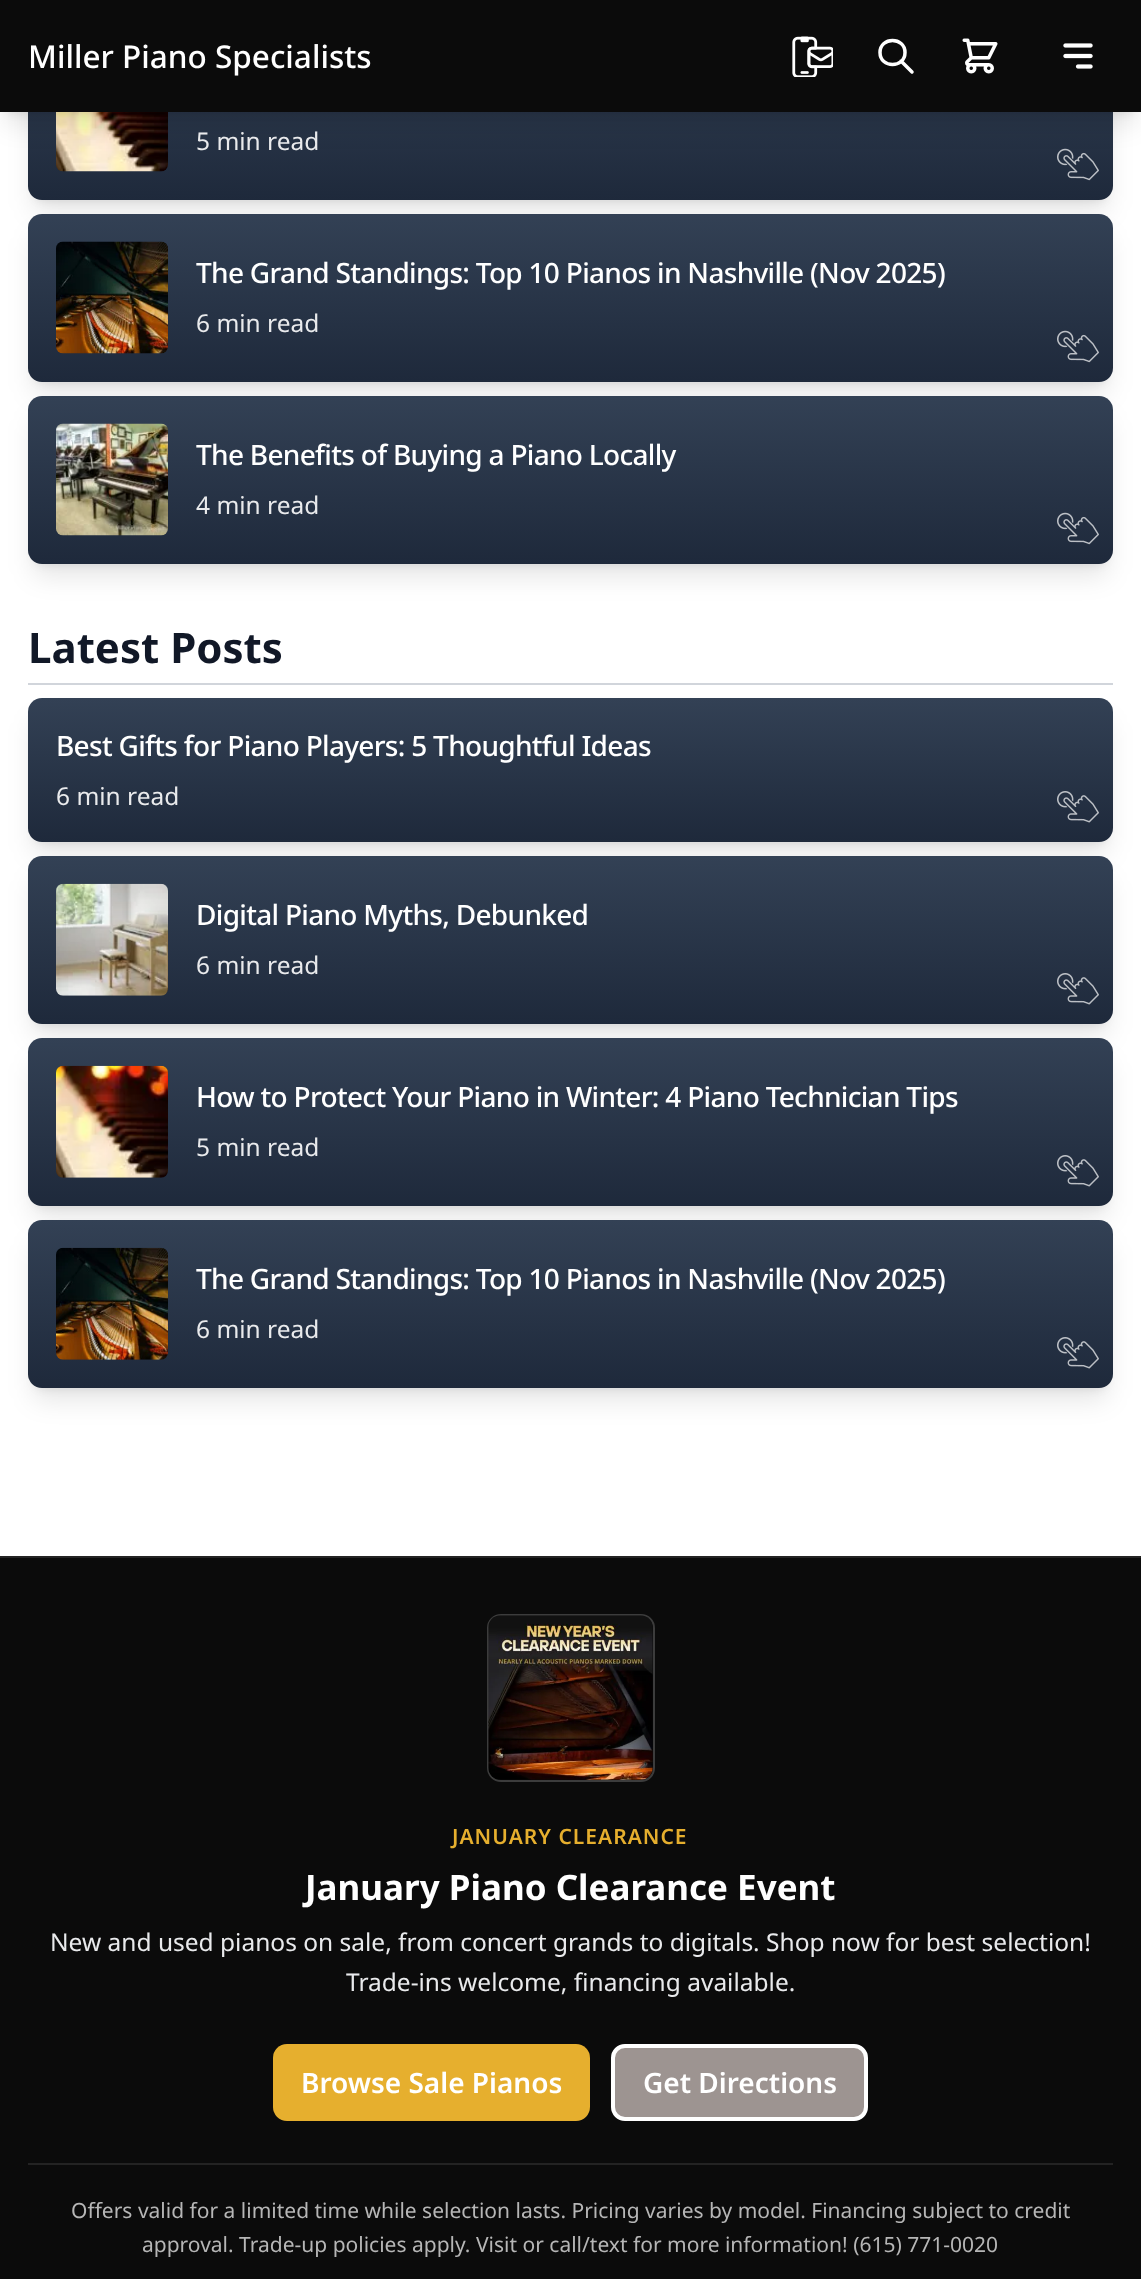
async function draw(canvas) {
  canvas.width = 1141
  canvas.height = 2279
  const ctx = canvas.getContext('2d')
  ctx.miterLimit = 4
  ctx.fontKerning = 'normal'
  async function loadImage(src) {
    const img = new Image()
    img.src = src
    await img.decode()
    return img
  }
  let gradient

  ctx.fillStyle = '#fff'
  ctx.fillRect(0, 0, 1141, 2279)
  ctx.fillStyle = '#0000001a'
  ctx.filter = 'blur(5px)'
  ctx.beginPath()
  ctx.roundRect(35, 46, 1071, 154, 7)
  ctx.fill()
  ctx.filter = 'none'
  ctx.filter = 'blur(13px)'
  ctx.beginPath()
  ctx.roundRect(33, 54, 1075, 158, 9)
  ctx.fill()
  ctx.filter = 'none'
  gradient = ctx.createLinearGradient(571, 31, 571, 200)
  gradient.addColorStop(0, '#334155')
  gradient.addColorStop(1, '#1e293b')
  ctx.fillStyle = gradient
  ctx.beginPath()
  ctx.roundRect(28, 32, 1085, 168, 14)
  ctx.fill()
  ctx.drawImage(await loadImage('image3.png'), 56, 112, 112, 60)
  ctx.fillStyle = '#0000001a'
  ctx.filter = 'blur(5px)'
  ctx.beginPath()
  ctx.rect(7, 14, 1127, 98)
  ctx.fill()
  ctx.filter = 'none'
  ctx.drawImage(await loadImage('image4.png'), 1057, 148, 42, 33)
  ctx.filter = 'blur(13px)'
  ctx.beginPath()
  ctx.rect(5, 23, 1131, 101)
  ctx.fill()
  ctx.filter = 'none'
  ctx.fillStyle = '#0b0b0b'
  ctx.fillRect(0, 0, 1141, 112)
  ctx.font = '500 31.5px Noto Sans'
  ctx.fillStyle = '#fff'
  ctx.fillText('Miller Piano Specialists', 28, 68)
  ctx.drawImage(await loadImage('image0.png'), 792, 36, 41, 41)
  ctx.beginPath()
  ctx.moveTo(912, 72)
  ctx.lineTo(901, 61)
  ctx.moveTo(905, 52.5)
  ctx.bezierCurveTo(905, 68.5, 880, 68.5, 880, 52.5)
  ctx.bezierCurveTo(880, 36.5, 905, 36.5, 905, 52.5)
  ctx.closePath()
  ctx.strokeStyle = '#fff'
  ctx.lineWidth = 3.5
  ctx.lineCap = 'round'
  ctx.lineJoin = 'round'
  ctx.stroke()
  ctx.drawImage(await loadImage('image1.png'), 962, 38, 36, 36)
  ctx.drawImage(await loadImage('image2.png'), 1063, 43, 30, 26)
  ctx.font = '24.5px Noto Sans'
  ctx.fillStyle = '#e9eaec'
  ctx.fillText('5 min read', 196, 150)
  ctx.fillStyle = '#0000001a'
  ctx.filter = 'blur(5px)'
  ctx.beginPath()
  ctx.roundRect(35, 228, 1071, 154, 7)
  ctx.fill()
  ctx.filter = 'none'
  ctx.filter = 'blur(13px)'
  ctx.beginPath()
  ctx.roundRect(33, 236, 1075, 158, 9)
  ctx.fill()
  ctx.filter = 'none'
  gradient = ctx.createLinearGradient(571, 213, 571, 382)
  gradient.addColorStop(0, '#334155')
  gradient.addColorStop(1, '#1e293b')
  ctx.fillStyle = gradient
  ctx.beginPath()
  ctx.roundRect(28, 214, 1085, 168, 14)
  ctx.fill()
  ctx.drawImage(await loadImage('image5.png'), 56, 241, 112, 113)
  ctx.letterSpacing = '-0.7px'
  ctx.font = '500 28px Noto Sans'
  ctx.fillStyle = '#fff'
  ctx.fillText('The Grand Standings: Top 10 Pianos in Nashville (Nov 2025)', 196, 283)
  ctx.letterSpacing = '0px'
  ctx.font = '24.5px Noto Sans'
  ctx.fillStyle = '#e9eaec'
  ctx.fillText('6 min read', 196, 332)
  ctx.drawImage(await loadImage('image4.png'), 1057, 330, 42, 33)
  ctx.fillStyle = '#0000001a'
  ctx.filter = 'blur(5px)'
  ctx.beginPath()
  ctx.roundRect(35, 410, 1071, 154, 7)
  ctx.fill()
  ctx.filter = 'none'
  ctx.filter = 'blur(13px)'
  ctx.beginPath()
  ctx.roundRect(33, 418, 1075, 158, 9)
  ctx.fill()
  ctx.filter = 'none'
  gradient = ctx.createLinearGradient(571, 395, 571, 564)
  gradient.addColorStop(0, '#334155')
  gradient.addColorStop(1, '#1e293b')
  ctx.fillStyle = gradient
  ctx.beginPath()
  ctx.roundRect(28, 396, 1085, 168, 14)
  ctx.fill()
  ctx.drawImage(await loadImage('image6.png'), 56, 423, 112, 113)
  ctx.letterSpacing = '-0.7px'
  ctx.font = '500 28px Noto Sans'
  ctx.fillStyle = '#fff'
  ctx.fillText('The Benefits of Buying a Piano Locally', 196, 465)
  ctx.letterSpacing = '0px'
  ctx.font = '24.5px Noto Sans'
  ctx.fillStyle = '#e9eaec'
  ctx.fillText('4 min read', 196, 514)
  ctx.drawImage(await loadImage('image4.png'), 1057, 512, 42, 33)
  ctx.fillStyle = '#d1d5db'
  ctx.fillRect(28, 683, 1085, 2)
  ctx.font = 'bold 42px Noto Sans'
  ctx.fillStyle = '#111827'
  ctx.fillText('Latest Posts', 28, 663)
  ctx.fillStyle = '#0000001a'
  ctx.filter = 'blur(5px)'
  ctx.beginPath()
  ctx.roundRect(35, 712, 1071, 130, 7)
  ctx.fill()
  ctx.filter = 'none'
  ctx.filter = 'blur(13px)'
  ctx.beginPath()
  ctx.roundRect(33, 721, 1075, 133, 9)
  ctx.fill()
  ctx.filter = 'none'
  gradient = ctx.createLinearGradient(571, 698, 571, 842)
  gradient.addColorStop(0, '#334155')
  gradient.addColorStop(1, '#1e293b')
  ctx.fillStyle = gradient
  ctx.beginPath()
  ctx.roundRect(28, 698, 1085, 144, 14)
  ctx.fill()
  ctx.letterSpacing = '-0.7px'
  ctx.font = '500 28px Noto Sans'
  ctx.fillStyle = '#fff'
  ctx.fillText('Best Gifts for Piano Players: 5 Thoughtful Ideas', 56, 756)
  ctx.letterSpacing = '0px'
  ctx.font = '24.5px Noto Sans'
  ctx.fillStyle = '#e9eaec'
  ctx.fillText('6 min read', 56, 805)
  ctx.drawImage(await loadImage('image7.png'), 1057, 791, 42, 32)
  ctx.fillStyle = '#0000001a'
  ctx.filter = 'blur(5px)'
  ctx.beginPath()
  ctx.roundRect(35, 870, 1071, 154, 7)
  ctx.fill()
  ctx.filter = 'none'
  ctx.filter = 'blur(13px)'
  ctx.beginPath()
  ctx.roundRect(33, 879, 1075, 157, 9)
  ctx.fill()
  ctx.filter = 'none'
  gradient = ctx.createLinearGradient(571, 856, 571, 1024)
  gradient.addColorStop(0, '#334155')
  gradient.addColorStop(1, '#1e293b')
  ctx.fillStyle = gradient
  ctx.beginPath()
  ctx.roundRect(28, 856, 1085, 168, 14)
  ctx.fill()
  ctx.drawImage(await loadImage('image8.png'), 56, 883, 112, 113)
  ctx.letterSpacing = '-0.7px'
  ctx.font = '500 28px Noto Sans'
  ctx.fillStyle = '#fff'
  ctx.fillText('Digital Piano Myths, Debunked', 196, 925)
  ctx.letterSpacing = '0px'
  ctx.font = '24.5px Noto Sans'
  ctx.fillStyle = '#e9eaec'
  ctx.fillText('6 min read', 196, 974)
  ctx.drawImage(await loadImage('image9.png'), 1057, 973, 42, 32)
  ctx.fillStyle = '#0000001a'
  ctx.filter = 'blur(5px)'
  ctx.beginPath()
  ctx.roundRect(35, 1052, 1071, 154, 7)
  ctx.fill()
  ctx.filter = 'none'
  ctx.filter = 'blur(13px)'
  ctx.beginPath()
  ctx.roundRect(33, 1061, 1075, 157, 9)
  ctx.fill()
  ctx.filter = 'none'
  gradient = ctx.createLinearGradient(571, 1038, 571, 1206)
  gradient.addColorStop(0, '#334155')
  gradient.addColorStop(1, '#1e293b')
  ctx.fillStyle = gradient
  ctx.beginPath()
  ctx.roundRect(28, 1038, 1085, 168, 14)
  ctx.fill()
  ctx.drawImage(await loadImage('image10.png'), 56, 1065, 112, 113)
  ctx.letterSpacing = '-0.7px'
  ctx.font = '500 28px Noto Sans'
  ctx.fillStyle = '#fff'
  ctx.fillText('How to Protect Your Piano in Winter: 4 Piano Technician Tips', 196, 1107)
  ctx.letterSpacing = '0px'
  ctx.font = '24.5px Noto Sans'
  ctx.fillStyle = '#e9eaec'
  ctx.fillText('5 min read', 196, 1156)
  ctx.drawImage(await loadImage('image9.png'), 1057, 1155, 42, 32)
  ctx.fillStyle = '#0000001a'
  ctx.filter = 'blur(5px)'
  ctx.beginPath()
  ctx.roundRect(35, 1234, 1071, 154, 7)
  ctx.fill()
  ctx.filter = 'none'
  ctx.filter = 'blur(13px)'
  ctx.beginPath()
  ctx.roundRect(33, 1243, 1075, 157, 9)
  ctx.fill()
  ctx.filter = 'none'
  gradient = ctx.createLinearGradient(571, 1220, 571, 1388)
  gradient.addColorStop(0, '#334155')
  gradient.addColorStop(1, '#1e293b')
  ctx.fillStyle = gradient
  ctx.beginPath()
  ctx.roundRect(28, 1220, 1085, 168, 14)
  ctx.fill()
  ctx.drawImage(await loadImage('image11.png'), 56, 1247, 112, 113)
  ctx.letterSpacing = '-0.7px'
  ctx.font = '500 28px Noto Sans'
  ctx.fillStyle = '#fff'
  ctx.fillText('The Grand Standings: Top 10 Pianos in Nashville (Nov 2025)', 196, 1289)
  ctx.letterSpacing = '0px'
  ctx.font = '24.5px Noto Sans'
  ctx.fillStyle = '#e9eaec'
  ctx.fillText('6 min read', 196, 1338)
  ctx.drawImage(await loadImage('image9.png'), 1057, 1337, 42, 32)
  ctx.fillStyle = '#0b0b0b'
  ctx.fillRect(0, 1558, 1141, 721)
  ctx.fillStyle = '#232323'
  ctx.fillRect(0, 1556, 1141, 2)
  ctx.beginPath()
  ctx.roundRect(488, 1615, 166, 166, 13)
  ctx.strokeStyle = '#3c3c3c'
  ctx.lineWidth = 2
  ctx.lineJoin = 'miter'
  ctx.stroke()
  ctx.drawImage(await loadImage('image12.png'), 488, 1615, 165, 165)
  ctx.letterSpacing = '1px'
  ctx.font = '600 21px Noto Sans'
  ctx.fillStyle = '#e6af2e'
  ctx.fillText('JANUARY CLEARANCE', 452, 1844)
  ctx.letterSpacing = '0px'
  ctx.font = 'bold 35px Noto Sans'
  ctx.fillStyle = '#fff'
  ctx.fillText('January Piano Clearance Event', 305, 1900)
  ctx.font = '24.5px Noto Sans'
  ctx.fillStyle = '#e9eaec'
  ctx.fillText('New and used pianos on sale, from concert grands to digitals. Shop now for best selection!', 50, 1951)
  ctx.fillText('Trade-ins welcome, financing available.', 346, 1991)
  ctx.fillStyle = '#e6af2e'
  ctx.beginPath()
  ctx.roundRect(273, 2044, 317, 77, 14)
  ctx.fill()
  ctx.font = '600 28px Noto Sans'
  ctx.fillStyle = '#fff'
  ctx.fillText('Browse Sale Pianos', 301, 2093)
  ctx.fillStyle = '#9d9491'
  ctx.beginPath()
  ctx.roundRect(613, 2046, 253, 73, 12)
  ctx.fill()
  ctx.strokeStyle = '#fff'
  ctx.lineWidth = 4
  ctx.stroke()
  ctx.fillStyle = '#fff'
  ctx.fillText('Get Directions', 643, 2093)
  ctx.fillStyle = '#232323'
  ctx.fillRect(28, 2163, 1085, 2)
  ctx.font = '21px Noto Sans'
  ctx.fillStyle = '#b6b6b6'
  ctx.fillText('Offers valid for a limited time while selection lasts. Pricing varies by model. Financing subject to credit', 71, 2218)
  ctx.fillText('approval. Trade-up policies apply. Visit or call/text for more information! (615) 771-0020', 142, 2252)
}

draw(document.querySelector('canvas'))
